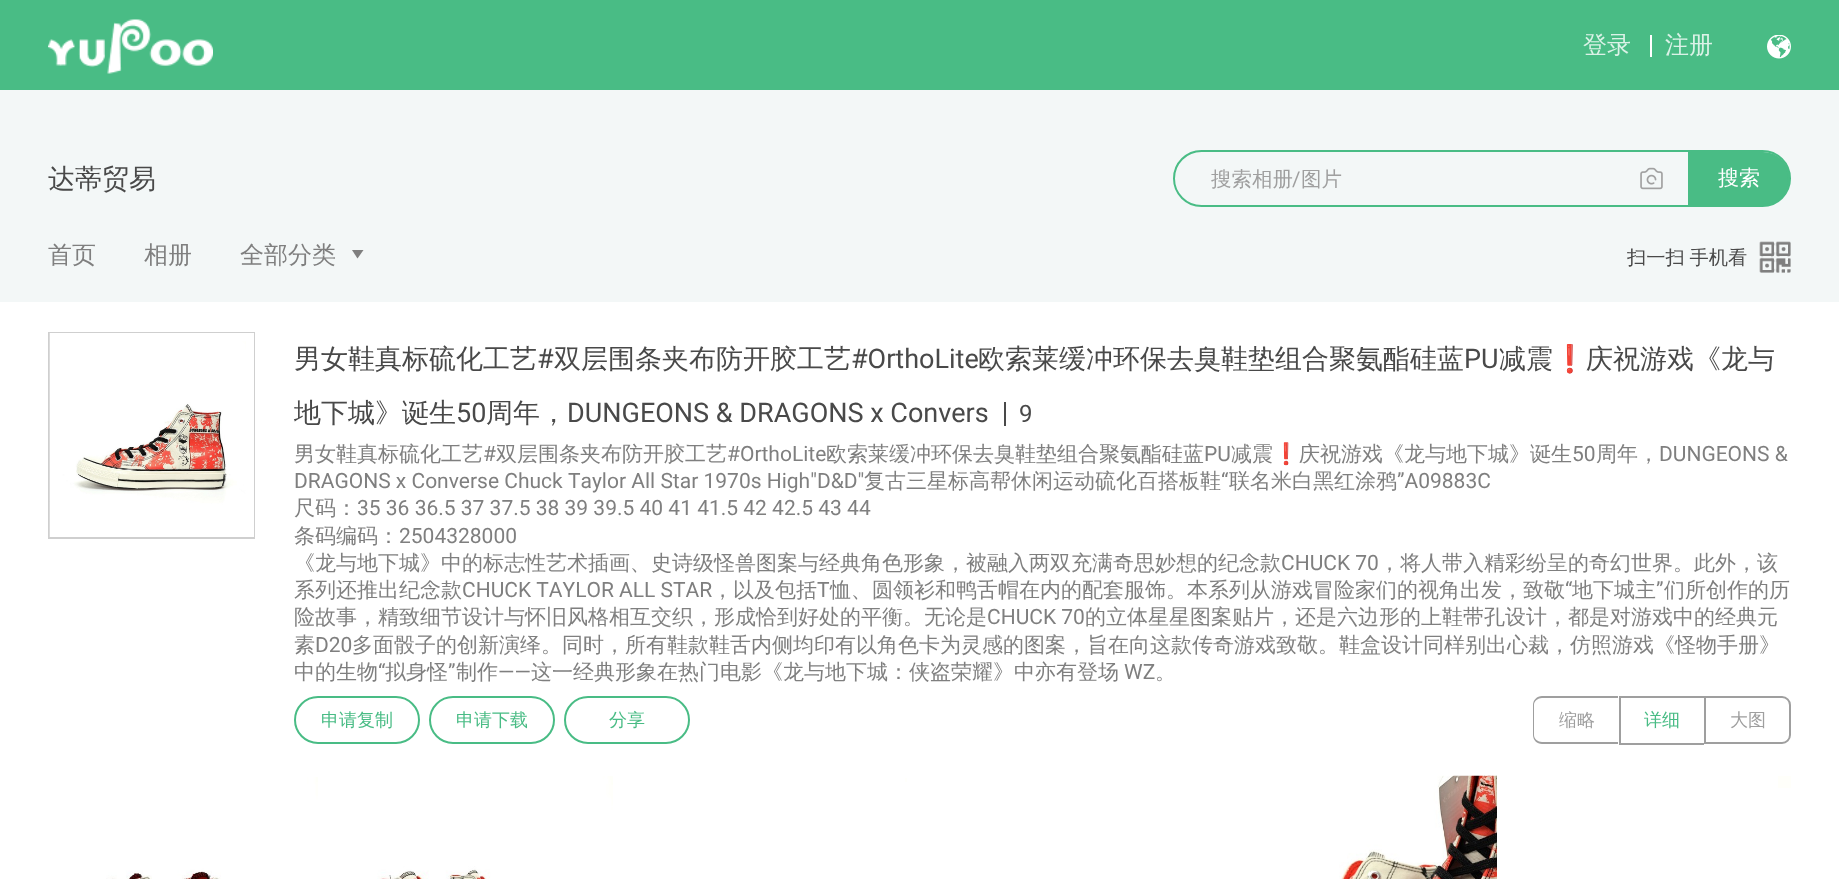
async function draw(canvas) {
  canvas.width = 1839
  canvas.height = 879
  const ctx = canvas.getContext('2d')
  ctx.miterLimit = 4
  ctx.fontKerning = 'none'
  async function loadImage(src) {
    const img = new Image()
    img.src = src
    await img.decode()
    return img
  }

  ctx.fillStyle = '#fff'
  ctx.fillRect(0, 0, 1839, 879)
  ctx.fillStyle = '#49bc85'
  ctx.fillRect(0, 0, 1839, 90)
  ctx.drawImage(await loadImage('image0.png'), 48, 19, 165, 55)
  ctx.font = '500 24px WenQuanYi Zen Hei'
  ctx.fillStyle = '#dbf2e7'
  ctx.fillText('登录', 1583, 53)
  ctx.fillStyle = '#fff'
  ctx.fillRect(1650, 35, 2, 22)
  ctx.fillStyle = '#dbf2e7'
  ctx.fillText('注册', 1665, 53)
  ctx.drawImage(await loadImage('image1.png'), 1767, 35, 24, 24)
  ctx.fillStyle = '#f3f7f7'
  ctx.fillRect(0, 90, 1839, 212)
  ctx.font = '500 27px WenQuanYi Zen Hei'
  ctx.fillStyle = '#494949'
  ctx.fillText('达蒂贸易', 48, 188)
  ctx.beginPath()
  ctx.roundRect(1174, 151, 616, 55, 27.5)
  ctx.strokeStyle = '#49bc85'
  ctx.lineWidth = 2
  ctx.stroke()
  ctx.font = '500 20.5px WenQuanYi Zen Hei'
  ctx.fillStyle = '#9f9f9f'
  ctx.fillText('搜索相册', 1211, 186)
  ctx.font = '20.5px Roboto'
  ctx.fillText('/', 1292, 186)
  ctx.font = '500 20.5px WenQuanYi Zen Hei'
  ctx.fillText('图片', 1301, 186)
  ctx.drawImage(await loadImage('image2.png'), 1640, 167, 23, 23)
  ctx.fillStyle = '#49bc85'
  ctx.beginPath()
  ctx.roundRect(1689, 153, 100, 52, [0, 26, 26, 0])
  ctx.fill()
  ctx.stroke()
  ctx.font = '21px Noto Sans'
  ctx.fillStyle = '#fff'
  ctx.fillText('搜', 1718, 185)
  ctx.font = '500 21px WenQuanYi Zen Hei'
  ctx.fillText('索', 1739, 185)
  ctx.font = '500 24px WenQuanYi Zen Hei'
  ctx.fillStyle = '#7f7f7f'
  ctx.fillText('首页', 48, 263)
  ctx.fillText('相册', 144, 263)
  ctx.fillText('全部分类', 240, 263)
  ctx.beginPath()
  ctx.moveTo(357.5, 258.5)
  ctx.lineTo(352, 250)
  ctx.lineTo(363.5, 250)
  ctx.closePath()
  ctx.fill()
  ctx.wordSpacing = '-1px'
  ctx.font = '500 19.25px WenQuanYi Zen Hei'
  ctx.fillStyle = '#494949'
  ctx.fillText('扫一扫 手机看', 1627, 264)
  ctx.drawImage(await loadImage('image3.png'), 1759, 241, 32, 32)
  ctx.strokeStyle = '#cfcfcf'
  ctx.strokeRect(49, 333, 205, 205)
  ctx.drawImage(await loadImage('image4.png'), 49, 333, 197, 204)
  ctx.strokeStyle = '#fff'
  ctx.lineWidth = 8
  ctx.strokeRect(54, 337, 196, 196)
  ctx.wordSpacing = '0px'
  ctx.font = '500 27px WenQuanYi Zen Hei'
  ctx.fillText('男女鞋真标硫化工艺', 294, 368)
  ctx.font = '27px Roboto'
  ctx.fillText('#', 537, 368)
  ctx.font = '500 27px WenQuanYi Zen Hei'
  ctx.fillText('双层围条夹布防开胶工艺', 554, 368)
  ctx.font = '27px Roboto'
  ctx.fillText('#OrthoLite', 851, 368)
  ctx.font = '500 27px WenQuanYi Zen Hei'
  ctx.fillText('欧索莱缓冲环保去臭鞋垫组合聚氨酯硅蓝', 978, 368)
  ctx.font = '27px Roboto'
  ctx.fillText('PU', 1464, 368)
  ctx.font = '500 27px WenQuanYi Zen Hei'
  ctx.fillText('减震', 1499, 368)
  ctx.font = '27px Noto Color Emoji'
  ctx.fillText('❗', 1553, 368)
  ctx.font = '500 27px WenQuanYi Zen Hei'
  ctx.fillText('庆祝游戏《龙与', 1586, 368)
  ctx.fillText('地下城》诞生', 294, 422)
  ctx.font = '27px Roboto'
  ctx.fillText('50', 456, 422)
  ctx.font = '500 27px WenQuanYi Zen Hei'
  ctx.fillText('周年，', 486, 422)
  ctx.font = '27px Roboto'
  ctx.fillText('DUNGEONS & DRAGONS x Convers', 567, 422)
  ctx.fillRect(1004, 402, 2, 24)
  ctx.font = '24px Roboto'
  ctx.fillText('9', 1019, 422)
  ctx.font = '500 21px WenQuanYi Zen Hei'
  ctx.fillStyle = '#7f7f7f'
  ctx.fillText('男女鞋真标硫化工艺', 294, 461)
  ctx.font = '21px Roboto'
  ctx.fillText('#', 483, 461)
  ctx.font = '500 21px WenQuanYi Zen Hei'
  ctx.fillText('双层围条夹布防开胶工艺', 496, 461)
  ctx.font = '21px Roboto'
  ctx.fillText('#OrthoLite', 727, 461)
  ctx.font = '500 21px WenQuanYi Zen Hei'
  ctx.fillText('欧索莱缓冲环保去臭鞋垫组合聚氨酯硅蓝', 826, 461)
  ctx.font = '21px Roboto'
  ctx.fillText('PU', 1204, 461)
  ctx.font = '500 21px WenQuanYi Zen Hei'
  ctx.fillText('减震', 1231, 461)
  ctx.font = '21px Noto Color Emoji'
  ctx.fillText('❗', 1273, 461)
  ctx.font = '500 21px WenQuanYi Zen Hei'
  ctx.fillText('庆祝游戏《龙与地下城》诞生', 1299, 461)
  ctx.font = '21px Roboto'
  ctx.fillText('50', 1572, 461)
  ctx.font = '500 21px WenQuanYi Zen Hei'
  ctx.fillText('周年，', 1596, 461)
  ctx.font = '21px Roboto'
  ctx.fillText('DUNGEONS &', 1659, 461)
  ctx.fillText('DRAGONS x Converse Chuck Taylor All Star 1970s High"D&D"', 294, 488)
  ctx.font = '500 21px WenQuanYi Zen Hei'
  ctx.fillText('复古三星标高帮休闲运动硫化百搭板鞋', 864, 488)
  ctx.font = '21px Roboto'
  ctx.fillText('“', 1221, 488)
  ctx.font = '500 21px WenQuanYi Zen Hei'
  ctx.fillText('联名米白黑红涂鸦', 1229, 488)
  ctx.font = '21px Roboto'
  ctx.fillText('”A09883C', 1397, 488)
  ctx.font = '500 21px WenQuanYi Zen Hei'
  ctx.fillText('尺码：', 294, 515)
  ctx.font = '21px Roboto'
  ctx.fillText('35 36 36.5 37 37.5 38 39 39.5 40 41 41.5 42 42.5 43 44', 357, 515)
  ctx.font = '500 21px WenQuanYi Zen Hei'
  ctx.fillText('条码编码：', 294, 543)
  ctx.font = '21px Roboto'
  ctx.fillText('2504328000', 399, 543)
  ctx.font = '500 21px WenQuanYi Zen Hei'
  ctx.fillText('《龙与地下城》中的标志性艺术插画、史诗级怪兽图案与经典角色形象，被融入两双充满奇思妙想的纪念款', 294, 570)
  ctx.font = '21px Roboto'
  ctx.fillText('CHUCK 70', 1281, 570)
  ctx.font = '500 21px WenQuanYi Zen Hei'
  ctx.fillText('，将人带入精彩纷呈的奇幻世界。此外，该', 1379, 570)
  ctx.fillText('系列还推出纪念款', 294, 597)
  ctx.font = '21px Roboto'
  ctx.fillText('CHUCK TAYLOR ALL STAR', 462, 597)
  ctx.font = '500 21px WenQuanYi Zen Hei'
  ctx.fillText('，以及包括', 712, 597)
  ctx.font = '21px Roboto'
  ctx.fillText('T', 817, 597)
  ctx.font = '500 21px WenQuanYi Zen Hei'
  ctx.fillText('恤、圆领衫和鸭舌帽在内的配套服饰。本系列从游戏冒险家们的视角出发，致敬', 830, 597)
  ctx.font = '21px Roboto'
  ctx.fillText('“', 1565, 597)
  ctx.font = '500 21px WenQuanYi Zen Hei'
  ctx.fillText('地下城主', 1572, 597)
  ctx.font = '21px Roboto'
  ctx.fillText('”', 1656, 597)
  ctx.font = '500 21px WenQuanYi Zen Hei'
  ctx.fillText('们所创作的历', 1664, 597)
  ctx.fillText('险故事，精致细节设计与怀旧风格相互交织，形成恰到好处的平衡。无论是', 294, 624)
  ctx.font = '21px Roboto'
  ctx.fillText('CHUCK 70', 987, 624)
  ctx.font = '500 21px WenQuanYi Zen Hei'
  ctx.fillText('的立体星星图案贴片，还是六边形的上鞋带孔设计，都是对游戏中的经典元', 1085, 624)
  ctx.fillText('素', 294, 652)
  ctx.font = '21px Roboto'
  ctx.fillText('D20', 315, 652)
  ctx.font = '500 21px WenQuanYi Zen Hei'
  ctx.fillText('多面骰子的创新演绎。同时，所有鞋款鞋舌内侧均印有以角色卡为灵感的图案，旨在向这款传奇游戏致敬。鞋盒设计同样别出心裁，仿照游戏《怪物手册》', 352, 652)
  ctx.fillText('中的生物', 294, 679)
  ctx.font = '21px Roboto'
  ctx.fillText('“', 378, 679)
  ctx.font = '500 21px WenQuanYi Zen Hei'
  ctx.fillText('拟身怪', 385, 679)
  ctx.font = '21px Roboto'
  ctx.fillText('”', 448, 679)
  ctx.font = '500 21px WenQuanYi Zen Hei'
  ctx.fillText('制作', 456, 679)
  ctx.font = '21px Roboto'
  ctx.fillText('——', 498, 679)
  ctx.font = '500 21px WenQuanYi Zen Hei'
  ctx.fillText('这一经典形象在热门电影《龙与地下城：侠盗荣耀》中亦有登场', 531, 679)
  ctx.font = '21px Roboto'
  ctx.fillText('WZ', 1124, 679)
  ctx.font = '500 21px WenQuanYi Zen Hei'
  ctx.fillText('。', 1155, 679)
  ctx.beginPath()
  ctx.roundRect(295, 697, 124, 46, 23)
  ctx.strokeStyle = '#49bc85'
  ctx.lineWidth = 2
  ctx.stroke()
  ctx.font = '500 18px WenQuanYi Zen Hei'
  ctx.fillStyle = '#49bc85'
  ctx.fillText('申请复制', 321, 726)
  ctx.beginPath()
  ctx.roundRect(430, 697, 124, 46, 23)
  ctx.stroke()
  ctx.fillText('申请下载', 456, 726)
  ctx.beginPath()
  ctx.roundRect(565, 697, 124, 46, 23)
  ctx.stroke()
  ctx.fillText('分享', 609, 726)
  ctx.fillStyle = '#9f9f9f'
  ctx.beginPath()
  ctx.moveTo(1542, 696)
  ctx.lineTo(1618, 696)
  ctx.lineTo(1618, 744)
  ctx.lineTo(1542, 744)
  ctx.bezierCurveTo(1537, 744, 1533, 740, 1533, 735)
  ctx.lineTo(1533, 705)
  ctx.bezierCurveTo(1533, 700, 1537, 696, 1542, 696)
  ctx.closePath()
  ctx.moveTo(1542, 698)
  ctx.lineTo(1618, 698)
  ctx.lineTo(1618, 742)
  ctx.lineTo(1542, 742)
  ctx.bezierCurveTo(1538, 742, 1534, 739, 1534, 735)
  ctx.lineTo(1534, 705)
  ctx.bezierCurveTo(1534, 701, 1538, 698, 1542, 698)
  ctx.closePath()
  ctx.fill('evenodd')
  ctx.fillText('缩略', 1559, 726)
  ctx.fillRect(1619, 696, 85, 2)
  ctx.fillRect(1619, 743, 85, 2)
  ctx.fillRect(1619, 696, 2, 48)
  ctx.fillStyle = '#49bc85'
  ctx.fillText('详细', 1644, 726)
  ctx.beginPath()
  ctx.roundRect(1705, 697, 85, 46, [0, 8, 8, 0])
  ctx.strokeStyle = '#9f9f9f'
  ctx.stroke()
  ctx.fillStyle = '#9f9f9f'
  ctx.fillText('大图', 1730, 726)
  ctx.drawImage(await loadImage('image5.png'), 106, 777, 212, 102)
  ctx.drawImage(await loadImage('image6.png'), 377, 776, 236, 103)
  ctx.fillStyle = '#fffffb'
  ctx.fillRect(905, 778, 2, 4)
  ctx.drawImage(await loadImage('image7.png'), 1339, 775, 158, 104)
  ctx.fillStyle = '#fffffa'
  ctx.fillRect(1778, 776, 13, 12)
}

draw(document.querySelector('canvas'))
